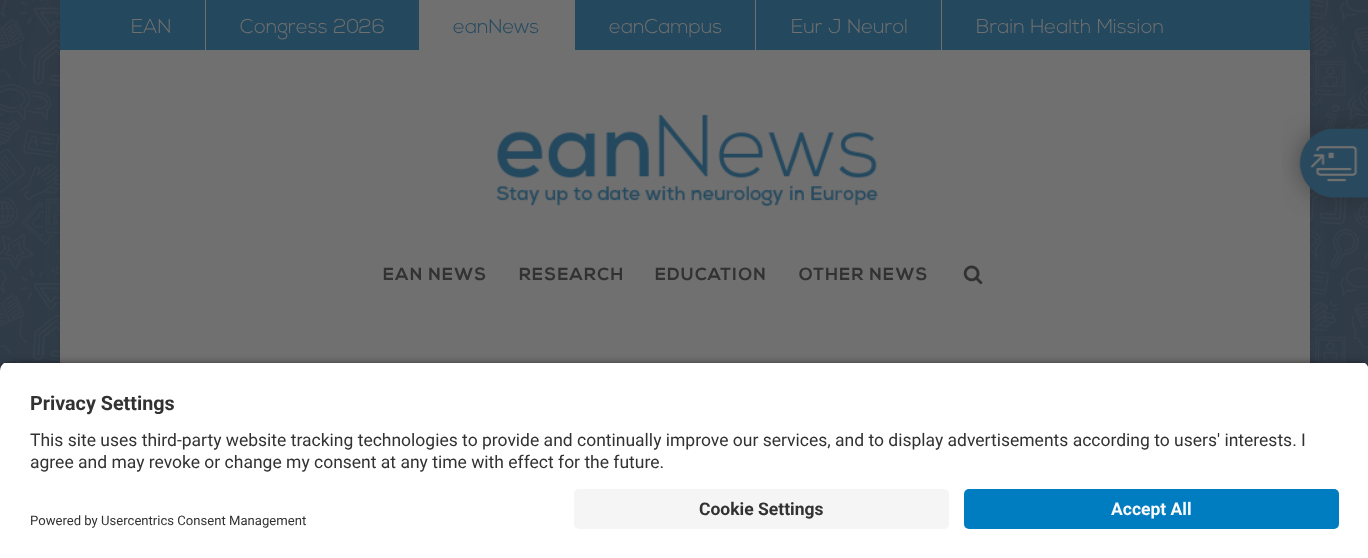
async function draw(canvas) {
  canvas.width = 1368
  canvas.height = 558
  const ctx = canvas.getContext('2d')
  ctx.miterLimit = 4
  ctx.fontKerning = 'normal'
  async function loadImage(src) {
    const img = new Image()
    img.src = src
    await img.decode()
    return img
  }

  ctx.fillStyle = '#fff'
  ctx.fillRect(0, 0, 1368, 558)
  ctx.drawImage(await loadImage('image0.png'), 0, 0, 1368, 371)
  ctx.fillStyle = '#24242433'
  ctx.filter = 'blur(5px)'
  ctx.beginPath()
  ctx.rect(60, 6, 1250, 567)
  ctx.fill()
  ctx.filter = 'none'
  ctx.fillStyle = '#707070'
  ctx.fillRect(60, 50, 1250, 313)
  ctx.fillStyle = '#24495e'
  ctx.fillRect(60, 0, 1250, 50)
  ctx.fillStyle = '#707070'
  ctx.fillRect(205, 0, 1, 53)
  ctx.font = '20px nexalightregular'
  ctx.fillText('EAN', 131, 33)
  ctx.fillRect(419, 0, 1, 53)
  ctx.fillText('Congress 2026', 240, 33)
  ctx.fillRect(420, 0, 155, 50)
  ctx.fillStyle = '#24495f'
  ctx.fillText('eanNews', 453, 33)
  ctx.fillStyle = '#707070'
  ctx.fillRect(755, 0, 1, 53)
  ctx.fillText('eanCampus', 609, 33)
  ctx.fillRect(941, 0, 1, 53)
  ctx.fillText('Eur J Neurol', 791, 33)
  ctx.fillText('Brain Health Mission', 976, 33)
  ctx.drawImage(await loadImage('image1.png'), 1282, 111, 86, 105)
  ctx.drawImage(await loadImage('image2.png'), 496, 114, 382, 93)
  ctx.letterSpacing = '1.25px'
  ctx.font = 'bold 17.5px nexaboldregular'
  ctx.fillStyle = '#323232'
  ctx.fillText('EAN NEWS', 383, 280)
  ctx.fillText('RESEARCH', 519, 280)
  ctx.fillText('EDUCATION', 655, 280)
  ctx.fillText('OTHER NEWS', 799, 280)
  ctx.drawImage(await loadImage('image3.png'), 963, 265, 20, 20)
  ctx.fillStyle = '#000000cc'
  ctx.filter = 'blur(4.5px)'
  ctx.beginPath()
  ctx.roundRect(0, 365, 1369, 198, 10)
  ctx.fill()
  ctx.filter = 'none'
  ctx.save()
  ctx.beginPath()
  ctx.moveTo(10, 361)
  ctx.lineTo(1359, 361)
  ctx.bezierCurveTo(1364.5, 361, 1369, 365.5, 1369, 371)
  ctx.lineTo(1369, 479)
  ctx.lineTo(0, 479)
  ctx.lineTo(0, 371)
  ctx.bezierCurveTo(0, 365.5, 4.5, 361, 10, 361)
  ctx.closePath()
  ctx.clip()
  ctx.fillStyle = '#fff'
  ctx.fillRect(0, 363, 1368, 116)
  ctx.restore()
  ctx.letterSpacing = '0px'
  ctx.font = 'bold 19.75px Roboto'
  ctx.fillStyle = '#323232'
  ctx.fillText('Privacy Settings', 30, 410)
  ctx.font = '17.5px Roboto'
  ctx.fillText('This site uses third-party website tracking technologies to provide and continually improve our services, and to display advertisements according to users\' interests. I', 30, 446)
  ctx.fillText('agree and may revoke or change my consent at any time with effect for the future.', 30, 468)
  ctx.fillStyle = '#fff'
  ctx.fillRect(0, 479, 1368, 79)
  ctx.fillStyle = '#f5f5f5'
  ctx.beginPath()
  ctx.roundRect(574, 489, 375, 40, 5)
  ctx.fill()
  ctx.font = 'bold 17.5px Roboto'
  ctx.fillStyle = '#323232'
  ctx.fillText('Cookie Settings', 699, 515)
  ctx.fillStyle = '#007cc1'
  ctx.beginPath()
  ctx.roundRect(964, 489, 375, 40, 5)
  ctx.fill()
  ctx.fillStyle = '#fafafa'
  ctx.fillText('Accept All', 1111, 515)
  ctx.font = '13.1px Roboto'
  ctx.fillStyle = '#323232'
  ctx.fillText('Powered by Usercentrics Consent Management', 30, 525)
}

draw(document.querySelector('canvas'))
